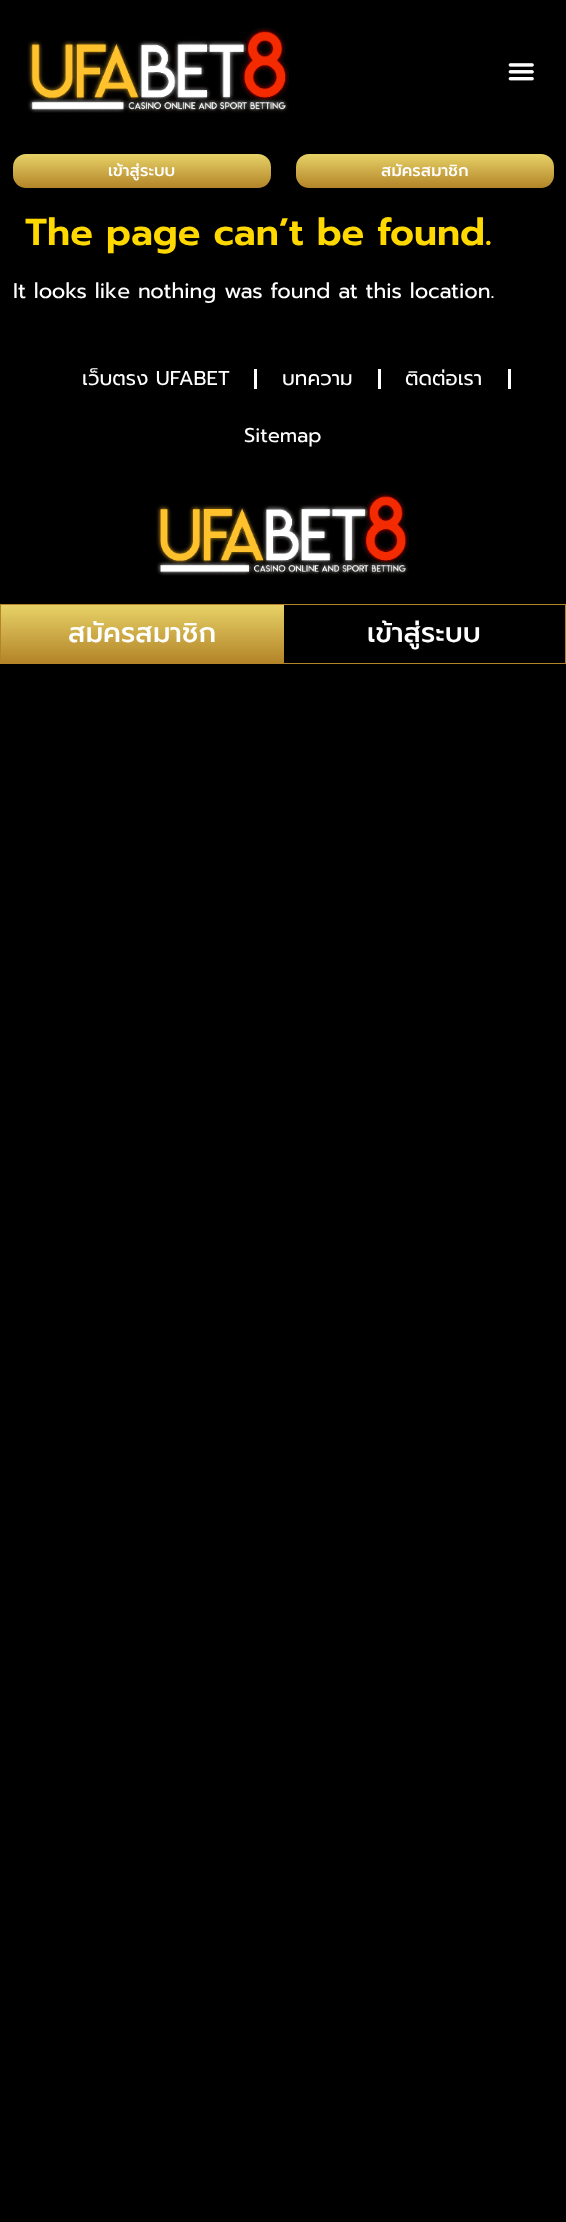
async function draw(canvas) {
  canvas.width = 566
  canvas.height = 2222
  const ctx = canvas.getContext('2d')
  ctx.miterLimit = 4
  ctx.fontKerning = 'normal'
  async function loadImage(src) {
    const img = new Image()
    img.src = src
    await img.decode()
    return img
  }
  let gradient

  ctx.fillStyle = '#000'
  ctx.fillRect(0, 0, 566, 2222)
  ctx.drawImage(await loadImage('image0.png'), 27, 27, 262, 86)
  ctx.drawImage(await loadImage('image1.png'), 508, 63, 26, 18)
  gradient = ctx.createLinearGradient(142, 154, 142, 188)
  gradient.addColorStop(0, '#e7d267')
  gradient.addColorStop(1, '#b38428')
  ctx.fillStyle = gradient
  ctx.beginPath()
  ctx.roundRect(13, 154, 258, 34, 13)
  ctx.fill()
  ctx.font = '500 16.25px Prompt'
  ctx.fillStyle = '#fff'
  ctx.fillText('เข้าสู่ระบบ', 108, 176)
  gradient = ctx.createLinearGradient(425, 154, 425, 188)
  gradient.addColorStop(0, '#e7d267')
  gradient.addColorStop(1, '#b38428')
  ctx.fillStyle = gradient
  ctx.beginPath()
  ctx.roundRect(296, 154, 258, 34, 13)
  ctx.fill()
  ctx.fillStyle = '#fff'
  ctx.fillText('สมัครสมาชิก', 381, 176)
  ctx.font = '600 37.5px Prompt'
  ctx.fillStyle = '#ffd800'
  ctx.fillText('The page can’t be found.', 25, 245)
  ctx.font = '21.25px Prompt'
  ctx.fillStyle = '#fff'
  ctx.fillText('It looks like nothing was found at this location.', 13, 298)
  ctx.font = '20px Prompt'
  ctx.fillText('เว็บตรง UFABET', 82, 385)
  ctx.fillRect(254, 369, 3, 20)
  ctx.fillText('บทความ', 282, 385)
  ctx.fillRect(378, 369, 3, 20)
  ctx.fillText('ติดต่อเรา', 405, 385)
  ctx.fillRect(508, 369, 3, 20)
  ctx.fillText('Sitemap', 244, 442)
  ctx.drawImage(await loadImage('image2.png'), 156, 492, 253, 84)
  ctx.strokeStyle = '#b38428'
  ctx.strokeRect(0.5, 604.5, 565, 59)
  gradient = ctx.createLinearGradient(143, 605, 143, 663)
  gradient.addColorStop(0, '#e7d267')
  gradient.addColorStop(1, '#b38428')
  ctx.fillStyle = gradient
  ctx.fillRect(1, 605, 283, 58)
  ctx.font = '500 27.5px Prompt'
  ctx.fillStyle = '#fff'
  ctx.fillText('สมัครสมาชิก', 68, 642)
  ctx.fillText('เข้าสู่ระบบ', 367, 642)
}

draw(document.querySelector('canvas'))
